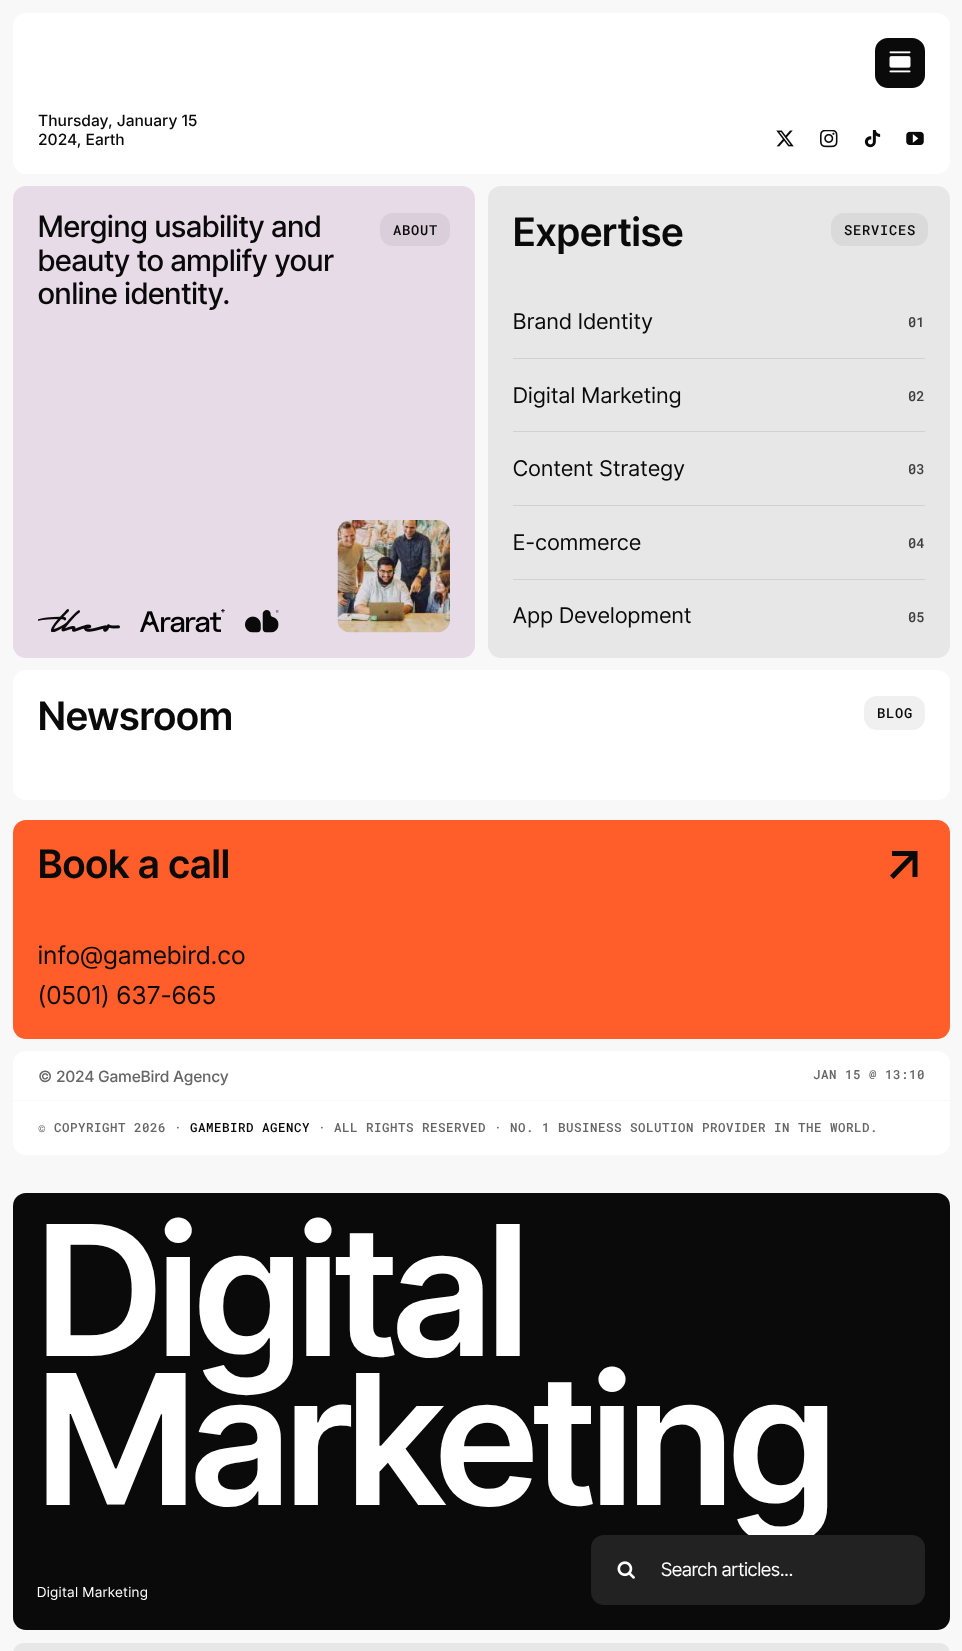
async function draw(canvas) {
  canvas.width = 962
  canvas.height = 1651
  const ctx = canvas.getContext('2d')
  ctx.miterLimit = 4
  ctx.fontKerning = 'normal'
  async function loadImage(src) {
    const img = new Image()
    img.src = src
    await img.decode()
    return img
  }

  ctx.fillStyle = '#f8f8f8'
  ctx.fillRect(0, 0, 962, 1651)
  ctx.fillStyle = '#fff'
  ctx.beginPath()
  ctx.roundRect(13, 13, 937, 161, 13)
  ctx.fill()
  ctx.fillStyle = '#0a0a0a'
  ctx.beginPath()
  ctx.roundRect(876.5, 39.5, 47, 47, 11.5)
  ctx.fill()
  ctx.strokeStyle = '#0a0a0a'
  ctx.lineWidth = 3
  ctx.stroke()
  ctx.drawImage(await loadImage('image0.png'), 889, 51, 22, 22)
  ctx.font = '500 15.6px Inter'
  ctx.fillText('Thursday, January 15', 38, 126)
  ctx.fillText('2024, Earth', 38, 145)
  ctx.drawImage(await loadImage('image1.png'), 776, 130, 18, 17)
  ctx.drawImage(await loadImage('image2.png'), 820, 130, 18, 18)
  ctx.drawImage(await loadImage('image3.png'), 864, 130, 17, 18)
  ctx.drawImage(await loadImage('image4.png'), 906, 131, 18, 14)
  ctx.fillStyle = '#e8dbe8'
  ctx.beginPath()
  ctx.roundRect(13, 186, 462, 472, 13)
  ctx.fill()
  ctx.letterSpacing = '0.3px'
  ctx.font = '500 29.6px Inter Tight'
  ctx.fillStyle = '#0a0a0a'
  ctx.fillText('Merging usability and', 38, 237)
  ctx.fillText('beauty to amplify your', 38, 271)
  ctx.fillText('online identity.', 38, 304)
  ctx.fillStyle = '#dbcedb'
  ctx.beginPath()
  ctx.roundRect(380, 213, 70, 33, 13)
  ctx.fill()
  ctx.letterSpacing = '0.75px'
  ctx.font = '500 13.75px Roboto Mono'
  ctx.fillStyle = '#0a0a0a'
  ctx.fillText('ABOUT', 393, 235)
  ctx.drawImage(await loadImage('image5.png'), 38, 609, 82, 24)
  ctx.drawImage(await loadImage('image6.png'), 140, 609, 85, 24)
  ctx.drawImage(await loadImage('image7.png'), 245, 610, 34, 23)
  ctx.drawImage(await loadImage('image8.png'), 337, 520, 113, 113)
  ctx.fillStyle = '#e7e7e7'
  ctx.beginPath()
  ctx.roundRect(488, 186, 462, 472, 13)
  ctx.fill()
  ctx.letterSpacing = '0.4px'
  ctx.font = '600 39.25px Inter Tight'
  ctx.fillStyle = '#0a0a0a'
  ctx.fillText('Expertise', 513, 246)
  ctx.fillStyle = '#dadada'
  ctx.beginPath()
  ctx.roundRect(831, 213, 97, 33, 13)
  ctx.fill()
  ctx.letterSpacing = '0.75px'
  ctx.font = '500 13.75px Roboto Mono'
  ctx.fillStyle = '#0a0a0a'
  ctx.fillText('SERVICES', 844, 235)
  ctx.fillStyle = '#d1d1d1'
  ctx.fillRect(513, 358, 412, 1)
  ctx.font = '21.75px Inter Tight'
  ctx.fillStyle = '#0a0a0a'
  ctx.fillText('Brand Identity', 513, 329)
  ctx.letterSpacing = '0px'
  ctx.font = '500 13.75px Roboto Mono'
  ctx.fillStyle = '#3f3f3f'
  ctx.fillText('01', 908, 327)
  ctx.fillStyle = '#d1d1d1'
  ctx.fillRect(513, 431, 412, 1)
  ctx.letterSpacing = '0.75px'
  ctx.font = '21.75px Inter Tight'
  ctx.fillStyle = '#0a0a0a'
  ctx.fillText('Digital Marketing', 513, 403)
  ctx.letterSpacing = '0px'
  ctx.font = '500 13.75px Roboto Mono'
  ctx.fillStyle = '#3f3f3f'
  ctx.fillText('02', 908, 401)
  ctx.fillStyle = '#d1d1d1'
  ctx.fillRect(513, 505, 412, 1)
  ctx.letterSpacing = '0.75px'
  ctx.font = '21.75px Inter Tight'
  ctx.fillStyle = '#0a0a0a'
  ctx.fillText('Content Strategy', 513, 476)
  ctx.letterSpacing = '0px'
  ctx.font = '500 13.75px Roboto Mono'
  ctx.fillStyle = '#3f3f3f'
  ctx.fillText('03', 908, 474)
  ctx.fillStyle = '#d1d1d1'
  ctx.fillRect(513, 579, 412, 1)
  ctx.letterSpacing = '0.75px'
  ctx.font = '21.75px Inter Tight'
  ctx.fillStyle = '#0a0a0a'
  ctx.fillText('E-commerce', 513, 550)
  ctx.letterSpacing = '0px'
  ctx.font = '500 13.75px Roboto Mono'
  ctx.fillStyle = '#3f3f3f'
  ctx.fillText('04', 908, 548)
  ctx.letterSpacing = '0.75px'
  ctx.font = '21.75px Inter Tight'
  ctx.fillStyle = '#0a0a0a'
  ctx.fillText('App Development', 513, 623)
  ctx.letterSpacing = '0px'
  ctx.font = '500 13.75px Roboto Mono'
  ctx.fillStyle = '#3f3f3f'
  ctx.fillText('05', 908, 622)
  ctx.fillStyle = '#fff'
  ctx.beginPath()
  ctx.roundRect(13, 670, 937, 130, 13)
  ctx.fill()
  ctx.letterSpacing = '0.4px'
  ctx.font = '600 39.25px Inter Tight'
  ctx.fillStyle = '#0a0a0a'
  ctx.fillText('Newsroom', 38, 730)
  ctx.fillStyle = '#f0f0f0'
  ctx.beginPath()
  ctx.roundRect(864, 696, 61, 34, 13)
  ctx.fill()
  ctx.letterSpacing = '0.75px'
  ctx.font = '500 13.75px Roboto Mono'
  ctx.fillStyle = '#0a0a0a'
  ctx.fillText('BLOG', 877, 718)
  ctx.fillStyle = '#ff5d29'
  ctx.beginPath()
  ctx.roundRect(13, 820, 937, 219, 13)
  ctx.fill()
  ctx.letterSpacing = '0.4px'
  ctx.font = '600 39.25px Inter Tight'
  ctx.fillStyle = '#0a0a0a'
  ctx.fillText('Book a call', 38, 878)
  ctx.letterSpacing = '0.9px'
  ctx.font = '24.75px Inter Tight'
  ctx.fillText('info@gamebird.co', 38, 964)
  ctx.fillText('(0501) 637-665', 38, 1004)
  ctx.beginPath()
  ctx.moveTo(893.5, 879)
  ctx.lineTo(890, 875.5)
  ctx.lineTo(909, 856)
  ctx.lineTo(892, 856)
  ctx.lineTo(892, 851)
  ctx.lineTo(917.5, 851)
  ctx.lineTo(917.5, 877)
  ctx.lineTo(912.5, 877)
  ctx.lineTo(912.5, 859.5)
  ctx.closePath()
  ctx.fill()
  ctx.fillStyle = '#fff'
  ctx.beginPath()
  ctx.roundRect(13, 1051, 937, 49, [13, 13, 0, 0])
  ctx.fill()
  ctx.letterSpacing = '-0.25px'
  ctx.font = '500 15.6px Inter'
  ctx.fillStyle = '#666'
  ctx.fillText('© 2024 GameBird Agency', 38, 1082)
  ctx.letterSpacing = '0.5px'
  ctx.font = '500 12.5px Roboto Mono'
  ctx.fillText('JAN 15 @ 13:10', 813, 1079)
  ctx.fillStyle = '#fff'
  ctx.beginPath()
  ctx.roundRect(13, 1101, 937, 54, [0, 0, 13, 13])
  ctx.fill()
  ctx.fillStyle = '#666'
  ctx.fillText('© COPYRIGHT 2026 ·', 38, 1132)
  ctx.fillStyle = '#0a0a0a'
  ctx.fillText('GAMEBIRD AGENCY', 190, 1132)
  ctx.fillStyle = '#666'
  ctx.fillText('· ALL RIGHTS RESERVED · NO. 1 BUSINESS SOLUTION PROVIDER IN THE WORLD.', 318, 1132)
  ctx.fillStyle = '#0a0a0a'
  ctx.beginPath()
  ctx.roundRect(13, 1193, 937, 437, 13)
  ctx.fill()
  ctx.letterSpacing = '-3.6px'
  ctx.font = '600 181.5px Inter Tight'
  ctx.fillStyle = '#fff'
  ctx.fillText('Digital', 37, 1356)
  ctx.fillText('Marketing', 37, 1505)
  ctx.fillStyle = '#222'
  ctx.beginPath()
  ctx.roundRect(591, 1535, 334, 70, 13)
  ctx.fill()
  ctx.drawImage(await loadImage('image9.png'), 617, 1561, 18, 18)
  ctx.letterSpacing = '0px'
  ctx.font = '18.75px Inter Tight'
  ctx.fillStyle = '#fff'
  ctx.fillText('Search articles...', 661, 1576)
  ctx.letterSpacing = '0.75px'
  ctx.font = '13.75px Inter Tight'
  ctx.fillText('Digital Marketing', 37, 1597)
  ctx.fillStyle = '#e7e7e7'
  ctx.beginPath()
  ctx.roundRect(13, 1643, 937, 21, 13)
  ctx.fill()
}

draw(document.querySelector('canvas'))
